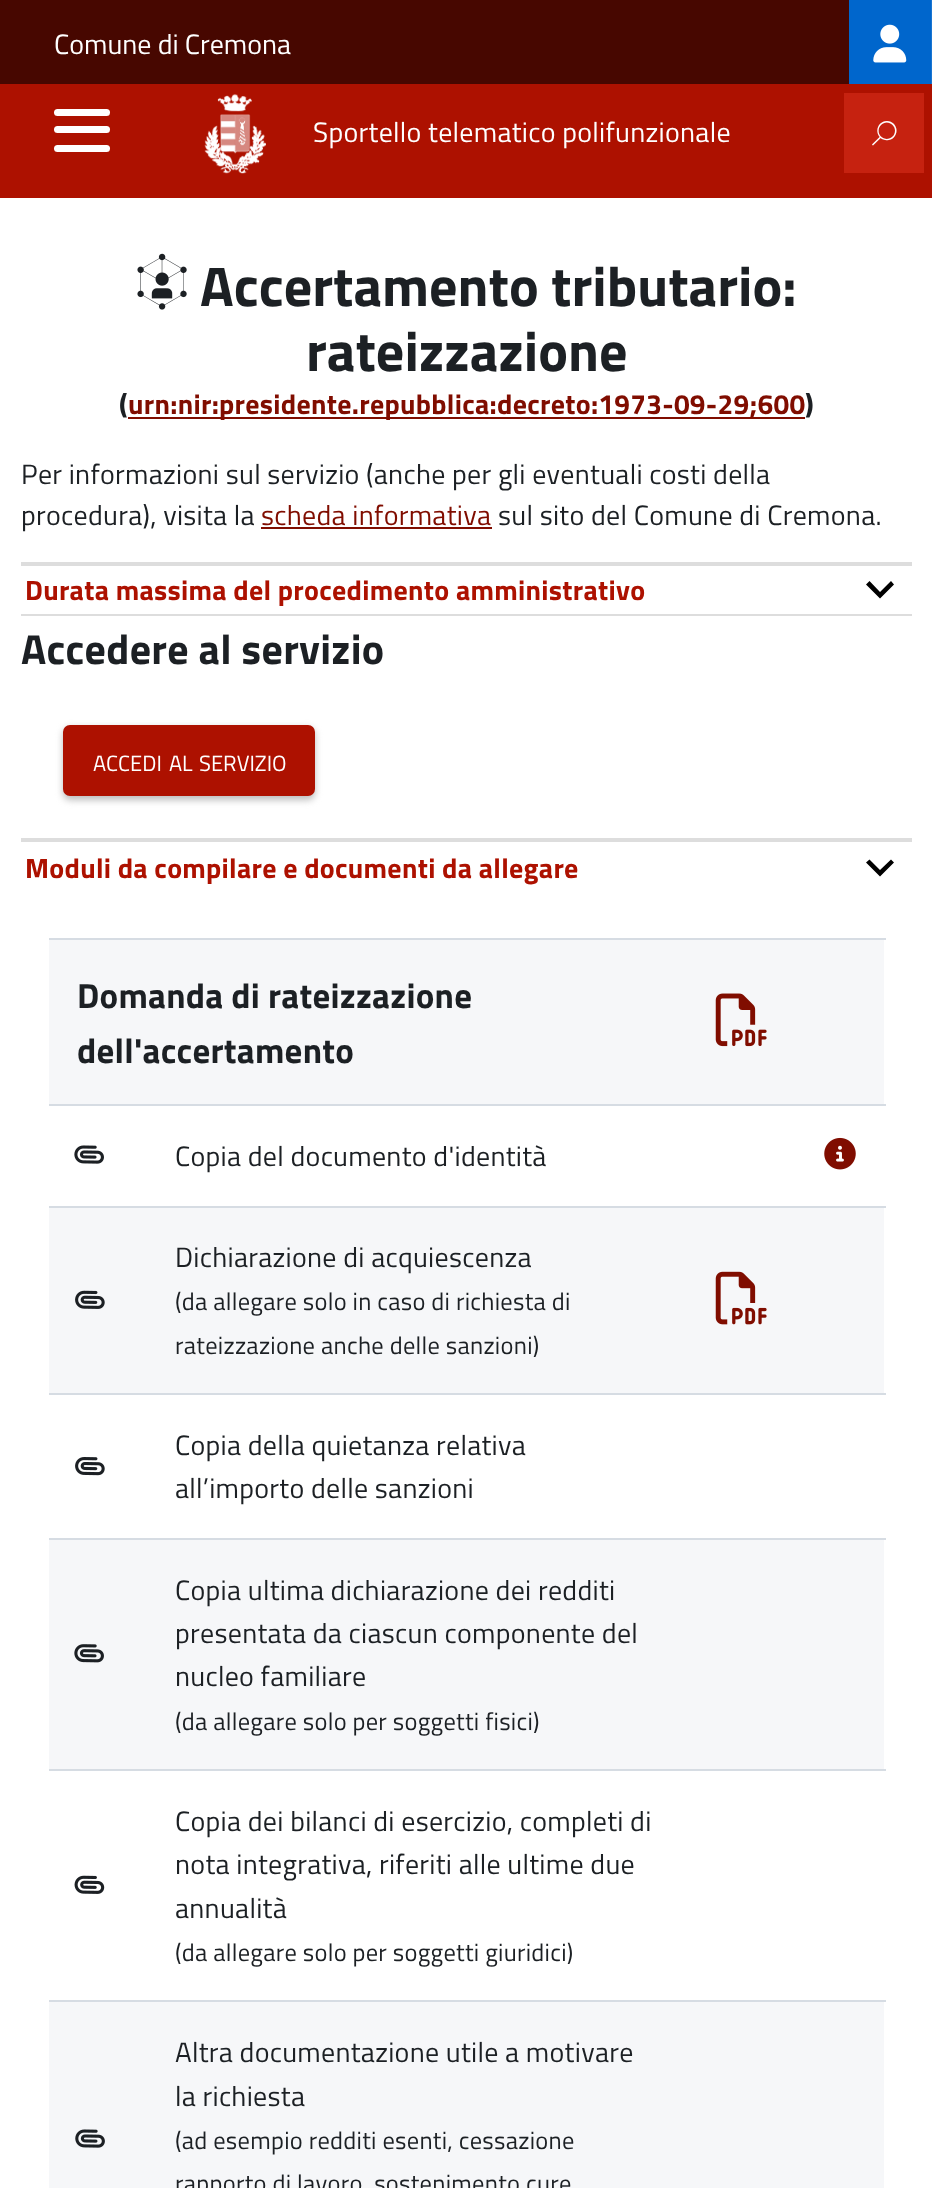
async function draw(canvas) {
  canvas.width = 932
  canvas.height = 2188
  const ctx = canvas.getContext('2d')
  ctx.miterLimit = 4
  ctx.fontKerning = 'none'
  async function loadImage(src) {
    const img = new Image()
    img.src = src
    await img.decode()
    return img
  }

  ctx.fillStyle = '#fff'
  ctx.fillRect(0, 0, 932, 2188)
  ctx.fillStyle = '#470700'
  ctx.fillRect(0, 0, 849, 84)
  ctx.font = '28px Titillium Web'
  ctx.fillStyle = '#fff'
  ctx.fillText('Comune di Cremona', 54, 54)
  ctx.fillStyle = '#06c'
  ctx.fillRect(849, 0, 82, 84)
  ctx.fillStyle = '#1a75d1'
  ctx.fillRect(931, 0, 1, 84)
  ctx.drawImage(await loadImage('image0.png'), 873, 24, 34, 39)
  ctx.fillStyle = '#ad1100'
  ctx.fillRect(0, 84, 932, 114)
  ctx.fillStyle = '#fff'
  ctx.beginPath()
  ctx.roundRect(54, 126, 56, 7, 3.5)
  ctx.fill()
  ctx.beginPath()
  ctx.roundRect(54, 109, 56, 7, 3.5)
  ctx.fill()
  ctx.beginPath()
  ctx.roundRect(54, 145, 56, 7, 3.5)
  ctx.fill()
  ctx.drawImage(await loadImage('image1.png'), 204, 94, 62, 80)
  ctx.letterSpacing = '0.28px'
  ctx.fillText('Sportello telematico polifunzionale', 313, 142)
  ctx.fillStyle = '#c62210'
  ctx.fillRect(844, 93, 80, 80)
  ctx.letterSpacing = '0px'
  ctx.font = '24.5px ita'
  ctx.fillStyle = '#fff'
  ctx.fillText('🔍', 872, 144)
  ctx.drawImage(await loadImage('image2.png'), 137, 253, 50, 57)
  ctx.font = 'bold 56px Titillium Web'
  ctx.fillStyle = '#1c2024'
  ctx.fillText('Accertamento tributario:', 200, 306)
  ctx.fillText('rateizzazione', 306, 371)
  ctx.letterSpacing = '0.28px'
  ctx.font = 'bold 28px Titillium Web'
  ctx.fillText('(', 119, 414)
  ctx.fillStyle = '#800d00'
  ctx.fillRect(128, 417, 677, 2)
  ctx.fillText('urn:nir:presidente.repubblica:decreto:1973-09-29;600', 128, 414)
  ctx.fillStyle = '#1c2024'
  ctx.fillText(')', 805, 414)
  ctx.font = '28px Titillium Web'
  ctx.fillText('Per informazioni sul servizio (anche per gli eventuali costi della', 21, 484)
  ctx.fillText('procedura), visita la', 21, 525)
  ctx.fillStyle = '#800d00'
  ctx.fillText('scheda informativa', 261, 525)
  ctx.fillRect(261, 527, 231, 2)
  ctx.fillStyle = '#1c2024'
  ctx.fillText('sul sito del Comune di Cremona.', 498, 525)
  ctx.fillStyle = '#ddd'
  ctx.fillRect(21, 562, 891, 4)
  ctx.fillRect(21, 614, 891, 2)
  ctx.fillStyle = '#000'
  ctx.beginPath()
  ctx.moveTo(869.5, 581)
  ctx.lineTo(866, 584.5)
  ctx.lineTo(880, 598.5)
  ctx.lineTo(894, 584.5)
  ctx.lineTo(891, 581)
  ctx.lineTo(880, 592)
  ctx.closePath()
  ctx.fill()
  ctx.font = 'bold 28px Titillium Web'
  ctx.fillStyle = '#ad1100'
  ctx.fillText('Durata massima del procedimento amministrativo', 25, 600)
  ctx.font = 'bold 42px Titillium Web'
  ctx.fillStyle = '#1c2024'
  ctx.fillText('Accedere al servizio', 21, 664)
  ctx.fillStyle = '#bdbdbd'
  ctx.filter = 'blur(3.5px)'
  ctx.beginPath()
  ctx.roundRect(63, 728, 252, 72, 7)
  ctx.fill()
  ctx.filter = 'none'
  ctx.fillStyle = '#ad1100'
  ctx.beginPath()
  ctx.roundRect(64, 726, 250, 69, 6)
  ctx.fill()
  ctx.strokeStyle = '#ad1100'
  ctx.lineWidth = 2
  ctx.stroke()
  ctx.letterSpacing = '0px'
  ctx.font = '22px Titillium Web'
  ctx.fillStyle = '#fff'
  ctx.fillText('ACCEDI', 93, 771)
  ctx.fillText('AL', 169, 771)
  ctx.fillText('SERVIZIO', 199, 771)
  ctx.fillStyle = '#ddd'
  ctx.fillRect(21, 838, 891, 4)
  ctx.fillStyle = '#000'
  ctx.beginPath()
  ctx.moveTo(869.5, 859.5)
  ctx.lineTo(866, 862.5)
  ctx.lineTo(880, 876.5)
  ctx.lineTo(894, 862.5)
  ctx.lineTo(891, 859.5)
  ctx.lineTo(880, 870)
  ctx.closePath()
  ctx.fill()
  ctx.letterSpacing = '0.28px'
  ctx.font = 'bold 28px Titillium Web'
  ctx.fillStyle = '#ad1100'
  ctx.fillText('Moduli da compilare e documenti da allegare', 25, 878)
  ctx.fillStyle = '#f6f7f9'
  ctx.fillRect(49, 940, 835, 164)
  ctx.fillStyle = '#d6dce3'
  ctx.fillRect(49, 938, 837, 2)
  ctx.fillRect(49, 1104, 837, 2)
  ctx.letterSpacing = '0.25px'
  ctx.font = 'bold 35px Titillium Web'
  ctx.fillStyle = '#1c2024'
  ctx.fillText('Domanda di rateizzazione', 77, 1008)
  ctx.fillText('dell\'accertamento', 77, 1063)
  ctx.drawImage(await loadImage('image3.png'), 715, 993, 52, 54)
  ctx.drawImage(await loadImage('image4.png'), 74, 1145, 30, 19)
  ctx.letterSpacing = '0.28px'
  ctx.font = '28px Titillium Web'
  ctx.fillText('Copia del documento d\'identità', 175, 1166)
  ctx.drawImage(await loadImage('image5.png'), 824, 1137, 32, 33)
  ctx.fillStyle = '#f6f7f9'
  ctx.fillRect(49, 1208, 835, 185)
  ctx.fillStyle = '#d6dce3'
  ctx.fillRect(49, 1206, 837, 2)
  ctx.fillRect(49, 1393, 837, 2)
  ctx.drawImage(await loadImage('image6.png'), 75, 1290, 30, 19)
  ctx.fillStyle = '#1c2024'
  ctx.fillText('Dichiarazione di acquiescenza', 175, 1267)
  ctx.font = '24.5px Titillium Web'
  ctx.fillText('(da allegare solo in caso di richiesta di', 175, 1310)
  ctx.fillText('rateizzazione anche delle sanzioni)', 175, 1354)
  ctx.drawImage(await loadImage('image7.png'), 715, 1271, 52, 54)
  ctx.drawImage(await loadImage('image8.png'), 75, 1457, 30, 19)
  ctx.font = '28px Titillium Web'
  ctx.fillText('Copia della quietanza relativa', 175, 1455)
  ctx.fillText('all’importo delle sanzioni', 175, 1498)
  ctx.fillStyle = '#f6f7f9'
  ctx.fillRect(49, 1540, 835, 229)
  ctx.fillStyle = '#d6dce3'
  ctx.fillRect(49, 1538, 837, 2)
  ctx.fillRect(49, 1769, 837, 2)
  ctx.drawImage(await loadImage('image9.png'), 74, 1644, 30, 19)
  ctx.fillStyle = '#1c2024'
  ctx.fillText('Copia ultima dichiarazione dei redditi', 175, 1600)
  ctx.fillText('presentata da ciascun componente del', 175, 1643)
  ctx.fillText('nucleo familiare', 175, 1686)
  ctx.font = '24.5px Titillium Web'
  ctx.fillText('(da allegare solo per soggetti fisici)', 175, 1730)
  ctx.drawImage(await loadImage('image10.png'), 74, 1875, 31, 19)
  ctx.font = '28px Titillium Web'
  ctx.fillText('Copia dei bilanci di esercizio, completi di', 175, 1831)
  ctx.fillText('nota integrativa, riferiti alle ultime due', 175, 1874)
  ctx.fillText('annualità', 175, 1918)
  ctx.font = '24.5px Titillium Web'
  ctx.fillText('(da allegare solo per soggetti giuridici)', 175, 1961)
  ctx.fillStyle = '#f6f7f9'
  ctx.fillRect(49, 2002, 835, 186)
  ctx.fillStyle = '#d6dce3'
  ctx.fillRect(49, 2000, 837, 2)
  ctx.drawImage(await loadImage('image11.png'), 75, 2129, 30, 19)
  ctx.font = '28px Titillium Web'
  ctx.fillStyle = '#1c2024'
  ctx.fillText('Altra documentazione utile a motivare', 175, 2062)
  ctx.fillText('la richiesta', 175, 2106)
  ctx.font = '24.5px Titillium Web'
  ctx.fillText('(ad esempio redditi esenti, cessazione', 175, 2149)
  ctx.fillText('rapporto di lavoro, sostenimento cure', 175, 2192)
}

draw(document.querySelector('canvas'))
